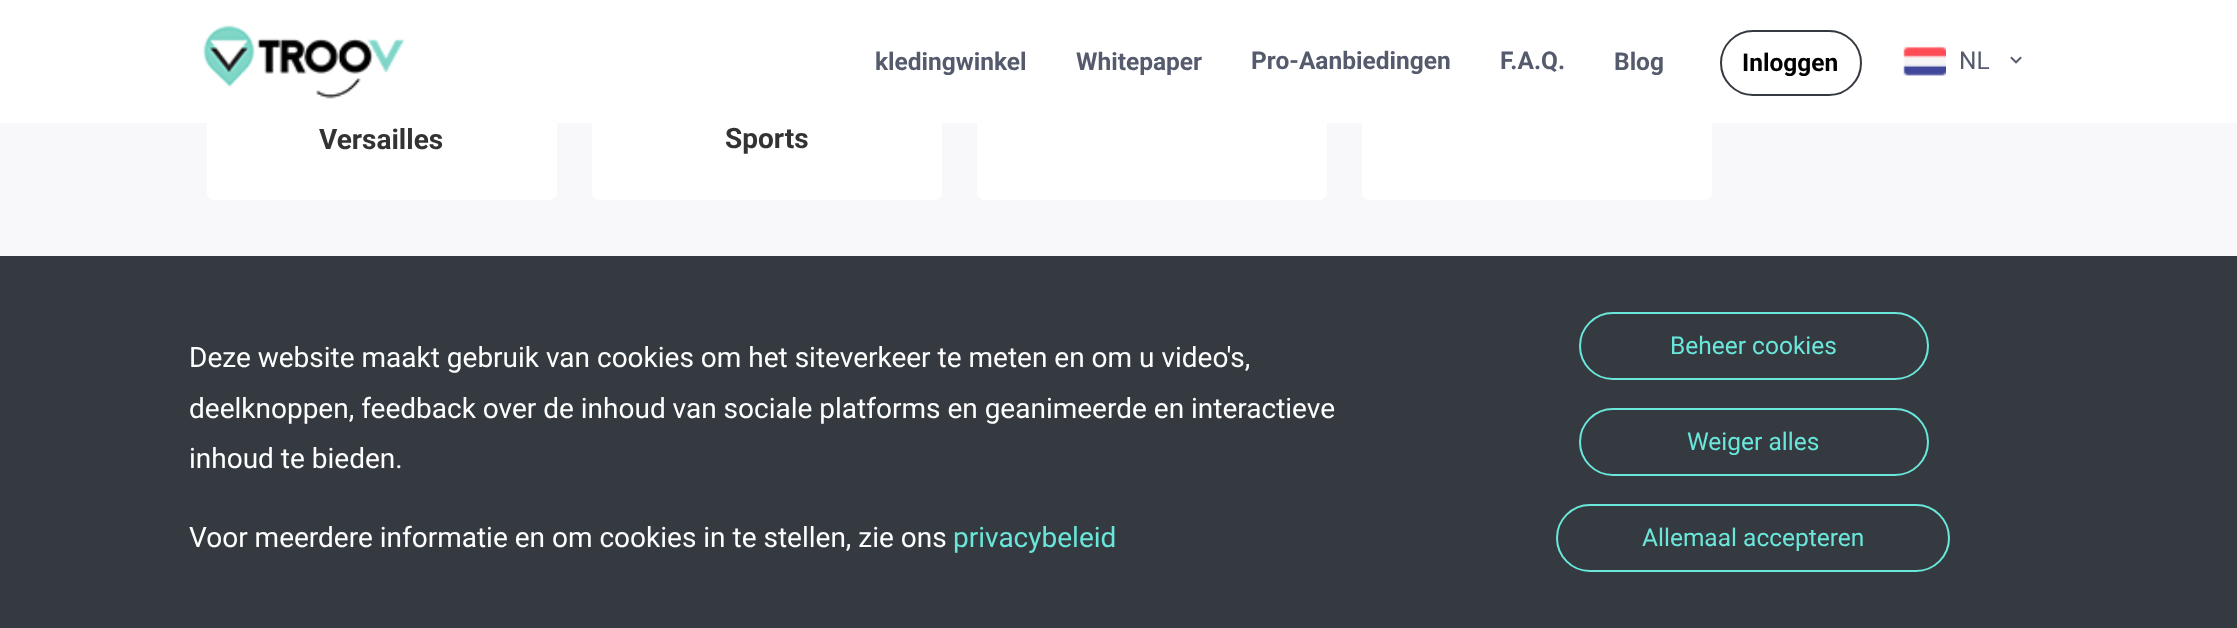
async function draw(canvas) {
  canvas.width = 2237
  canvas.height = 628
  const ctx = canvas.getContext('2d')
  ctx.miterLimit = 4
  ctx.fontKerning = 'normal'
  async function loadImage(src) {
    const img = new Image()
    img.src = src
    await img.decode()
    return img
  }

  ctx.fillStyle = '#f8f8fb'
  ctx.fillRect(0, 0, 2237, 628)
  ctx.fillStyle = '#fff'
  ctx.beginPath()
  ctx.roundRect(207, -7, 350, 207, 7)
  ctx.fill()
  ctx.beginPath()
  ctx.roundRect(592, -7, 350, 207, 7)
  ctx.fill()
  ctx.beginPath()
  ctx.roundRect(977, -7, 350, 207, 7)
  ctx.fill()
  ctx.beginPath()
  ctx.roundRect(1362, -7, 350, 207, 7)
  ctx.fill()
  ctx.fillRect(0, 0, 2237, 123)
  ctx.drawImage(await loadImage('image0.png'), 202, 24, 203, 75)
  ctx.font = 'bold 24.5px Roboto'
  ctx.fillStyle = '#555b6d'
  ctx.fillText('kledingwinkel', 875, 70)
  ctx.fillText('Whitepaper', 1076, 70)
  ctx.fillText('Pro-Aanbiedingen', 1251, 69)
  ctx.fillText('F.A.Q.', 1500, 69)
  ctx.fillText('Blog', 1614, 70)
  ctx.beginPath()
  ctx.roundRect(1721, 31, 140, 64, 32)
  ctx.strokeStyle = '#343a40'
  ctx.lineWidth = 2
  ctx.stroke()
  ctx.fillStyle = '#000'
  ctx.fillText('Inloggen', 1742, 71)
  ctx.drawImage(await loadImage('image1.png'), 1903, 46, 43, 30)
  ctx.font = '24.5px Roboto'
  ctx.fillStyle = '#555b6d'
  ctx.fillText('NL', 1959, 69)
  ctx.drawImage(await loadImage('image2.png'), 2010, 56, 12, 8)
  ctx.font = 'bold 28px Roboto'
  ctx.fillStyle = '#333'
  ctx.fillText('Versailles', 319, 149)
  ctx.fillText('Sports', 725, 148)
  ctx.fillStyle = '#343a40'
  ctx.fillRect(0, 256, 2237, 372)
  ctx.font = '28px Roboto'
  ctx.fillStyle = '#fff'
  ctx.fillText('Deze website maakt gebruik van cookies om het siteverkeer te meten en om u video\'s,', 189, 367)
  ctx.fillText('deelknoppen, feedback over de inhoud van sociale platforms en geanimeerde en interactieve', 189, 418)
  ctx.fillText('inhoud te bieden.', 189, 468)
  ctx.fillText('Voor meerdere informatie en om cookies in te stellen, zie ons', 189, 547)
  ctx.fillStyle = '#6ae7da'
  ctx.fillText('privacybeleid', 953, 547)
  ctx.beginPath()
  ctx.roundRect(1580, 313, 348, 66, 33)
  ctx.strokeStyle = '#6ae7da'
  ctx.stroke()
  ctx.font = '24.5px Roboto'
  ctx.fillText('Beheer cookies', 1670, 354)
  ctx.beginPath()
  ctx.roundRect(1580, 409, 348, 66, 33)
  ctx.stroke()
  ctx.fillText('Weiger alles', 1687, 450)
  ctx.beginPath()
  ctx.roundRect(1557, 505, 392, 66, 33)
  ctx.stroke()
  ctx.fillText('Allemaal accepteren', 1642, 546)
}

draw(document.querySelector('canvas'))
